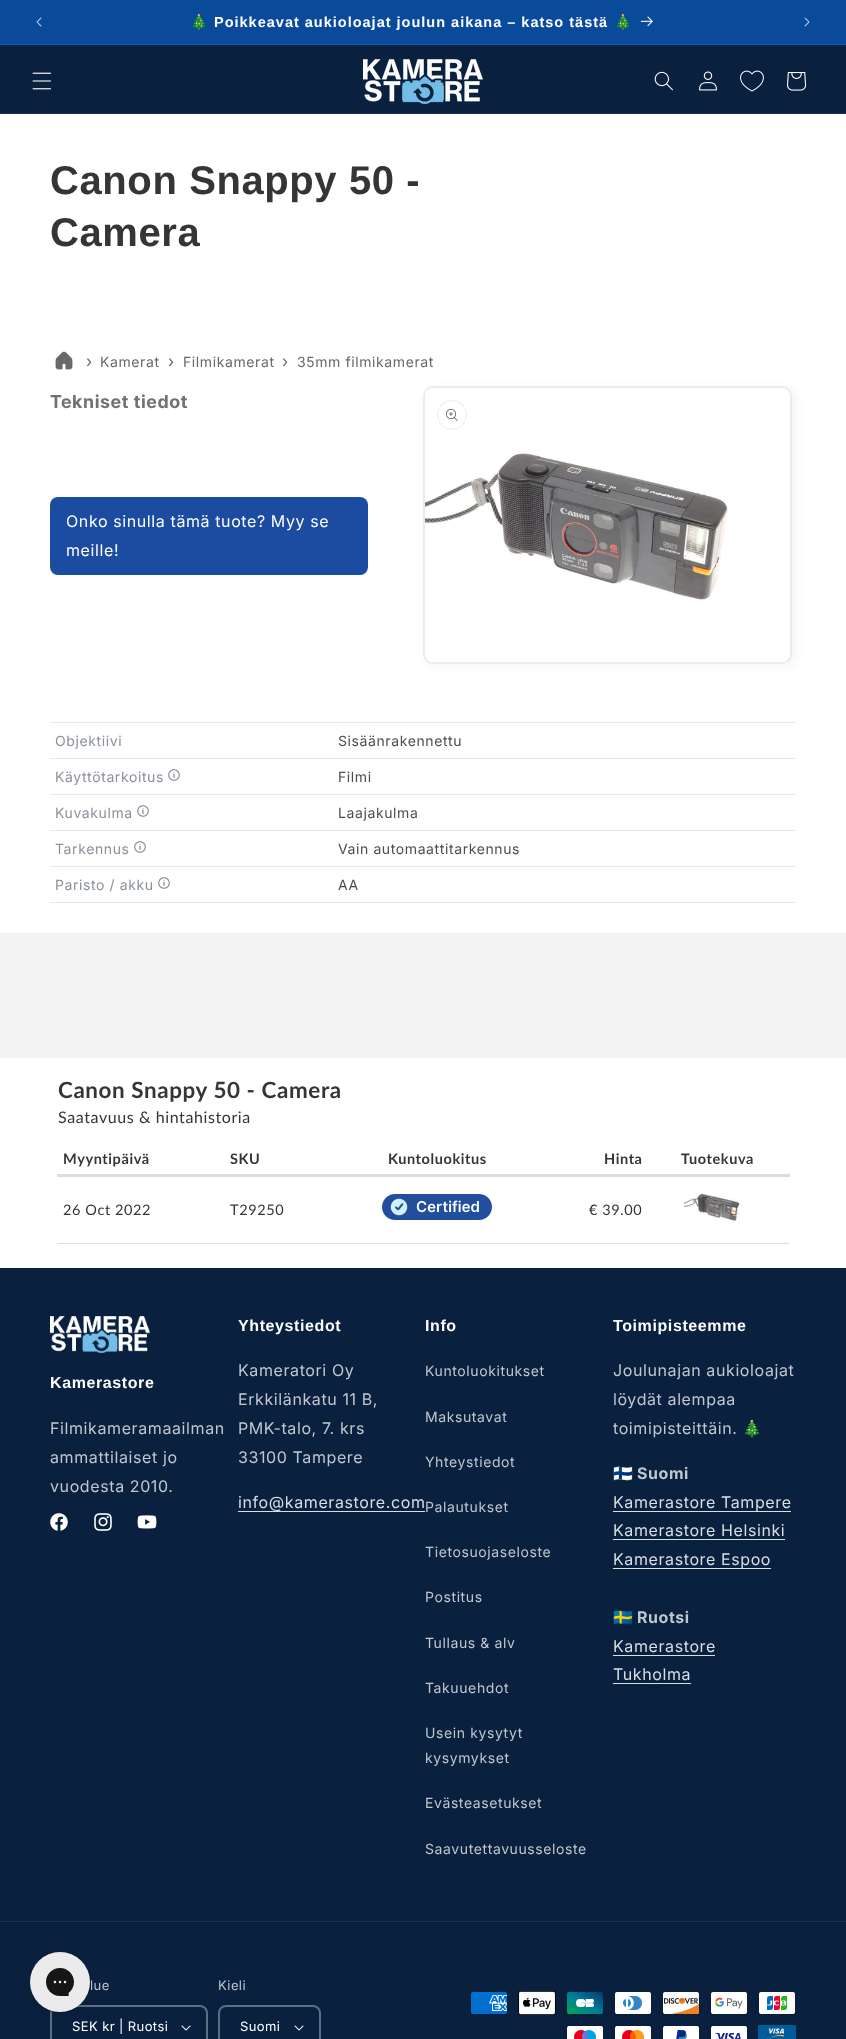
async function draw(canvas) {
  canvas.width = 846
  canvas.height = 2039
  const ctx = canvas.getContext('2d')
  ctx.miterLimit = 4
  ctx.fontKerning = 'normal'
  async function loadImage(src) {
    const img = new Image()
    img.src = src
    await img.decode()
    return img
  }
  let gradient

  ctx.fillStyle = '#fff'
  ctx.fillRect(0, 0, 846, 2039)
  gradient = ctx.createRadialGradient(423, 423, 0, 423, 423, 598)
  gradient.addColorStop(0.23, '#0ecdef')
  gradient.addColorStop(0.65, '#0a4a9a')
  ctx.fillStyle = gradient
  ctx.beginPath()
  ctx.rect(0, 0, 846, 44)
  ctx.save()
  ctx.clip()
  ctx.scale(1, 1442 / 598)
  ctx.fillRect(0, 0, 846, 846)
  ctx.restore()
  ctx.fillStyle = '#1e58a2'
  ctx.fillRect(0, 44, 846, 1)
  ctx.drawImage(await loadImage('image0.png'), 36, 17, 6, 10)
  ctx.letterSpacing = '1px'
  ctx.font = 'bold 14.5px Noto Color Emoji'
  ctx.fillStyle = '#fff'
  ctx.fillText('🎄', 190, 27)
  ctx.font = 'bold 14.5px Liberation Sans'
  ctx.fillText('Poikkeavat aukioloajat joulun aikana – katso tästä', 214, 27)
  ctx.font = 'bold 14.5px Noto Color Emoji'
  ctx.fillText('🎄', 614, 27)
  ctx.drawImage(await loadImage('image1.png'), 641, 16, 12, 11)
  ctx.drawImage(await loadImage('image2.png'), 804, 17, 6, 10)
  ctx.fillStyle = '#09203e'
  ctx.fillRect(0, 45, 846, 68)
  ctx.fillStyle = '#1d324d'
  ctx.fillRect(0, 113, 846, 1)
  ctx.drawImage(await loadImage('image3.png'), 32, 72, 20, 18)
  ctx.drawImage(await loadImage('image4.png'), 363, 59, 120, 45)
  ctx.drawImage(await loadImage('image5.png'), 654, 71, 19, 20)
  ctx.drawImage(await loadImage('image6.png'), 699, 71, 18, 20)
  ctx.drawImage(await loadImage('image7.png'), 740, 70, 24, 22)
  ctx.drawImage(await loadImage('image8.png'), 787, 72, 20, 19)
  ctx.letterSpacing = '0.6px'
  ctx.font = 'bold 40px Liberation Sans'
  ctx.fillStyle = '#353535'
  ctx.fillText('Canon Snappy 50 -', 50, 194)
  ctx.fillText('Camera', 50, 246)
  ctx.drawImage(await loadImage('image9.png'), 55, 351, 18, 19)
  ctx.font = '16px Inter'
  ctx.fillStyle = '#686868'
  ctx.fillText('›', 86, 367)
  ctx.font = '14px Inter'
  ctx.fillText('Kamerat', 100, 367)
  ctx.font = '16px Inter'
  ctx.fillText('›', 168, 367)
  ctx.font = '14px Inter'
  ctx.fillText('Filmikamerat', 183, 367)
  ctx.font = '16px Inter'
  ctx.fillText('›', 282, 367)
  ctx.font = '14px Inter'
  ctx.fillText('35mm filmikamerat', 297, 367)
  ctx.font = 'bold 18px Inter'
  ctx.fillStyle = '#727272'
  ctx.fillText('Tekniset tiedot', 50, 408)
  ctx.fillStyle = '#1b4ca1'
  ctx.beginPath()
  ctx.roundRect(50, 497, 318, 78, 8)
  ctx.fill()
  ctx.font = '16px Inter'
  ctx.fillStyle = '#fff'
  ctx.fillText('Onko sinulla tämä tuote? Myy se', 66, 527)
  ctx.fillText('meille!', 66, 556)
  ctx.fillStyle = '#09203e0d'
  ctx.filter = 'blur(5px)'
  ctx.beginPath()
  ctx.roundRect(427, 388, 369, 278, 10)
  ctx.fill()
  ctx.filter = 'none'
  ctx.fillStyle = '#fff'
  ctx.beginPath()
  ctx.roundRect(424, 387, 367, 276, 9)
  ctx.fill()
  ctx.strokeStyle = '#ebebeb'
  ctx.lineWidth = 2
  ctx.stroke()
  ctx.drawImage(await loadImage('image10.png'), 425, 388, 365, 274)
  ctx.beginPath()
  ctx.arc(452, 415, 14.5, 0, 2 * Math.PI)
  ctx.lineWidth = 1
  ctx.stroke()
  ctx.drawImage(await loadImage('image11.png'), 446, 409, 12, 12)
  ctx.fillStyle = '#e6e8ea'
  ctx.fillRect(50, 722, 746, 1)
  ctx.font = '14px Inter'
  ctx.fillStyle = '#8a919b'
  ctx.fillText('Objektiivi', 55, 746)
  ctx.fillStyle = '#4d4d4d'
  ctx.fillText('Sisäänrakennettu', 338, 746)
  ctx.fillStyle = '#e6e8ea'
  ctx.fillRect(50, 758, 746, 1)
  ctx.fillStyle = '#8a919b'
  ctx.fillText('Käyttötarkoitus', 55, 782)
  ctx.drawImage(await loadImage('image12.png'), 168, 769, 12, 12)
  ctx.fillStyle = '#4d4d4d'
  ctx.fillText('Filmi', 338, 782)
  ctx.fillStyle = '#e6e8ea'
  ctx.fillRect(50, 794, 746, 1)
  ctx.fillStyle = '#8a919b'
  ctx.fillText('Kuvakulma', 55, 818)
  ctx.drawImage(await loadImage('image12.png'), 137, 805, 12, 12)
  ctx.fillStyle = '#4d4d4d'
  ctx.fillText('Laajakulma', 338, 818)
  ctx.fillStyle = '#e6e8ea'
  ctx.fillRect(50, 830, 746, 1)
  ctx.fillStyle = '#8a919b'
  ctx.fillText('Tarkennus', 55, 854)
  ctx.drawImage(await loadImage('image12.png'), 134, 841, 12, 12)
  ctx.fillStyle = '#4d4d4d'
  ctx.fillText('Vain automaattitarkennus', 338, 854)
  ctx.fillStyle = '#e6e8ea'
  ctx.fillRect(50, 866, 746, 1)
  ctx.fillRect(50, 902, 746, 1)
  ctx.fillStyle = '#8a919b'
  ctx.fillText('Paristo / akku', 55, 890)
  ctx.drawImage(await loadImage('image12.png'), 158, 877, 12, 12)
  ctx.fillStyle = '#4d4d4d'
  ctx.fillText('AA', 338, 890)
  ctx.fillStyle = '#f3f3f3'
  ctx.fillRect(0, 933, 846, 125)
  ctx.font = 'bold 22.4px Lato'
  ctx.fillStyle = '#353535'
  ctx.fillText('Canon Snappy 50 - Camera', 58, 1098)
  ctx.font = '16px Lato'
  ctx.fillText('Saatavuus & hintahistoria', 58, 1123)
  ctx.fillStyle = '#ddd'
  ctx.fillRect(57, 1174, 733, 3)
  ctx.font = 'bold 14.5px Lato'
  ctx.fillStyle = '#353535'
  ctx.fillText('Myyntipäivä', 63, 1164)
  ctx.fillText('SKU', 230, 1164)
  ctx.fillText('Kuntoluokitus', 388, 1164)
  ctx.fillText('Hinta', 604, 1164)
  ctx.fillText('Tuotekuva', 681, 1164)
  ctx.fillStyle = '#ddd'
  ctx.fillRect(58, 1243, 731, 1)
  ctx.font = '14.5px Lato'
  ctx.fillStyle = '#353535'
  ctx.fillText('26 Oct 2022', 63, 1215)
  ctx.fillText('T29250', 230, 1215)
  ctx.drawImage(await loadImage('image13.png'), 382, 1194, 110, 26)
  ctx.fillText('€ 39.00', 589, 1215)
  ctx.drawImage(await loadImage('image14.png'), 684, 1192, 56, 30)
  ctx.fillStyle = '#09203e'
  ctx.fillRect(0, 1268, 846, 771)
  ctx.drawImage(await loadImage('image15.png'), 50, 1316, 100, 37)
  ctx.font = 'bold 16px Liberation Sans'
  ctx.fillStyle = '#fff'
  ctx.fillText('Kamerastore', 50, 1388)
  ctx.font = '16px Inter'
  ctx.fillStyle = '#c2c7cf'
  ctx.fillText('Filmikameramaailman', 50, 1434)
  ctx.fillText('ammattilaiset jo', 50, 1463)
  ctx.fillText('vuodesta 2010.', 50, 1492)
  ctx.drawImage(await loadImage('image16.png'), 50, 1513, 18, 18)
  ctx.drawImage(await loadImage('image17.png'), 94, 1513, 18, 18)
  ctx.drawImage(await loadImage('image18.png'), 137, 1515, 20, 14)
  ctx.font = 'bold 16px Liberation Sans'
  ctx.fillStyle = '#fff'
  ctx.fillText('Yhteystiedot', 238, 1331)
  ctx.font = '16px Inter'
  ctx.fillStyle = '#c2c7cf'
  ctx.fillText('Kameratori Oy', 238, 1376)
  ctx.fillText('Erkkilänkatu 11 B,', 238, 1405)
  ctx.fillText('PMK-talo, 7. krs', 238, 1434)
  ctx.fillText('33100 Tampere', 238, 1463)
  ctx.fillStyle = '#dadee2'
  ctx.fillRect(238, 1511, 187, 1)
  ctx.fillText('info@kamerastore.com', 238, 1508)
  ctx.font = 'bold 16px Liberation Sans'
  ctx.fillStyle = '#fff'
  ctx.fillText('Info', 425, 1331)
  ctx.font = '14px Inter'
  ctx.fillStyle = '#c2c7cf'
  ctx.fillText('Kuntoluokitukset', 425, 1376)
  ctx.fillText('Maksutavat', 425, 1422)
  ctx.fillText('Yhteystiedot', 425, 1467)
  ctx.fillText('Palautukset', 425, 1512)
  ctx.fillText('Tietosuojaseloste', 425, 1557)
  ctx.fillText('Postitus', 425, 1602)
  ctx.fillText('Tullaus & alv', 425, 1648)
  ctx.fillText('Takuuehdot', 425, 1693)
  ctx.fillText('Usein kysytyt', 425, 1738)
  ctx.fillText('kysymykset', 425, 1763)
  ctx.fillText('Evästeasetukset', 425, 1808)
  ctx.fillText('Saavutettavuusseloste', 425, 1854)
  ctx.font = 'bold 16px Liberation Sans'
  ctx.fillStyle = '#fff'
  ctx.fillText('Toimipisteemme', 613, 1331)
  ctx.font = '16px Inter'
  ctx.fillStyle = '#c2c7cf'
  ctx.fillText('Joulunajan aukioloajat', 613, 1376)
  ctx.fillText('löydät alempaa', 613, 1405)
  ctx.fillText('toimipisteittäin.', 613, 1434)
  ctx.font = '16px Noto Color Emoji'
  ctx.fillText('🎄', 742, 1434)
  ctx.fillText('🇫🇮', 613, 1479)
  ctx.font = 'bold 16px "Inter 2"'
  ctx.fillText('Suomi', 637, 1479)
  ctx.fillStyle = '#dadee2'
  ctx.fillRect(613, 1511, 178, 1)
  ctx.font = '16px Inter'
  ctx.fillText('Kamerastore Tampere', 613, 1508)
  ctx.fillText('Kamerastore Helsinki', 613, 1536)
  ctx.fillRect(613, 1539, 172, 1)
  ctx.fillRect(613, 1568, 158, 1)
  ctx.fillText('Kamerastore Espoo', 613, 1565)
  ctx.font = '16px Noto Color Emoji'
  ctx.fillStyle = '#c2c7cf'
  ctx.fillText('🇸🇪', 613, 1623)
  ctx.font = 'bold 16px "Inter 2"'
  ctx.fillText('Ruotsi', 637, 1623)
  ctx.font = '16px Inter'
  ctx.fillStyle = '#dadee2'
  ctx.fillText('Kamerastore', 613, 1652)
  ctx.fillRect(613, 1655, 102, 1)
  ctx.fillText('Tukholma', 613, 1680)
  ctx.fillRect(613, 1683, 78, 1)
  ctx.fillStyle = '#1d324d'
  ctx.fillRect(0, 1921, 846, 1)
  ctx.letterSpacing = '0.4px'
  ctx.font = '13px Inter'
  ctx.fillStyle = '#c2c7cf'
  ctx.fillText('lue', 90, 1990)
  ctx.drawImage(await loadImage('image19.png'), 181, 2025, 10, 6)
  ctx.beginPath()
  ctx.roundRect(51, 2006, 156, 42, 7)
  ctx.strokeStyle = '#5f6e82'
  ctx.lineWidth = 2
  ctx.stroke()
  ctx.fillStyle = '#fff'
  ctx.fillText('SEK kr | Ruotsi', 72, 2031)
  ctx.fillStyle = '#c2c7cf'
  ctx.fillText('Kieli', 218, 1990)
  ctx.drawImage(await loadImage('image19.png'), 294, 2025, 10, 6)
  ctx.beginPath()
  ctx.roundRect(219, 2006, 101, 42, 7)
  ctx.stroke()
  ctx.fillStyle = '#fff'
  ctx.fillText('Suomi', 240, 2031)
  ctx.drawImage(await loadImage('image20.png'), 470, 1991, 38, 24)
  ctx.drawImage(await loadImage('image21.png'), 518, 1991, 38, 24)
  ctx.drawImage(await loadImage('image22.png'), 566, 1991, 38, 24)
  ctx.drawImage(await loadImage('image23.png'), 614, 1991, 38, 24)
  ctx.drawImage(await loadImage('image24.png'), 662, 1991, 38, 24)
  ctx.drawImage(await loadImage('image25.png'), 710, 1991, 38, 24)
  ctx.drawImage(await loadImage('image26.png'), 758, 1991, 38, 24)
  ctx.drawImage(await loadImage('image27.png'), 566, 2025, 38, 14)
  ctx.drawImage(await loadImage('image28.png'), 614, 2025, 38, 14)
  ctx.drawImage(await loadImage('image29.png'), 662, 2025, 38, 14)
  ctx.drawImage(await loadImage('image30.png'), 710, 2025, 38, 14)
  ctx.drawImage(await loadImage('image31.png'), 758, 2025, 38, 14)
  ctx.drawImage(await loadImage('image32.png'), 30, 1952, 62, 63)
}

draw(document.querySelector('canvas'))
